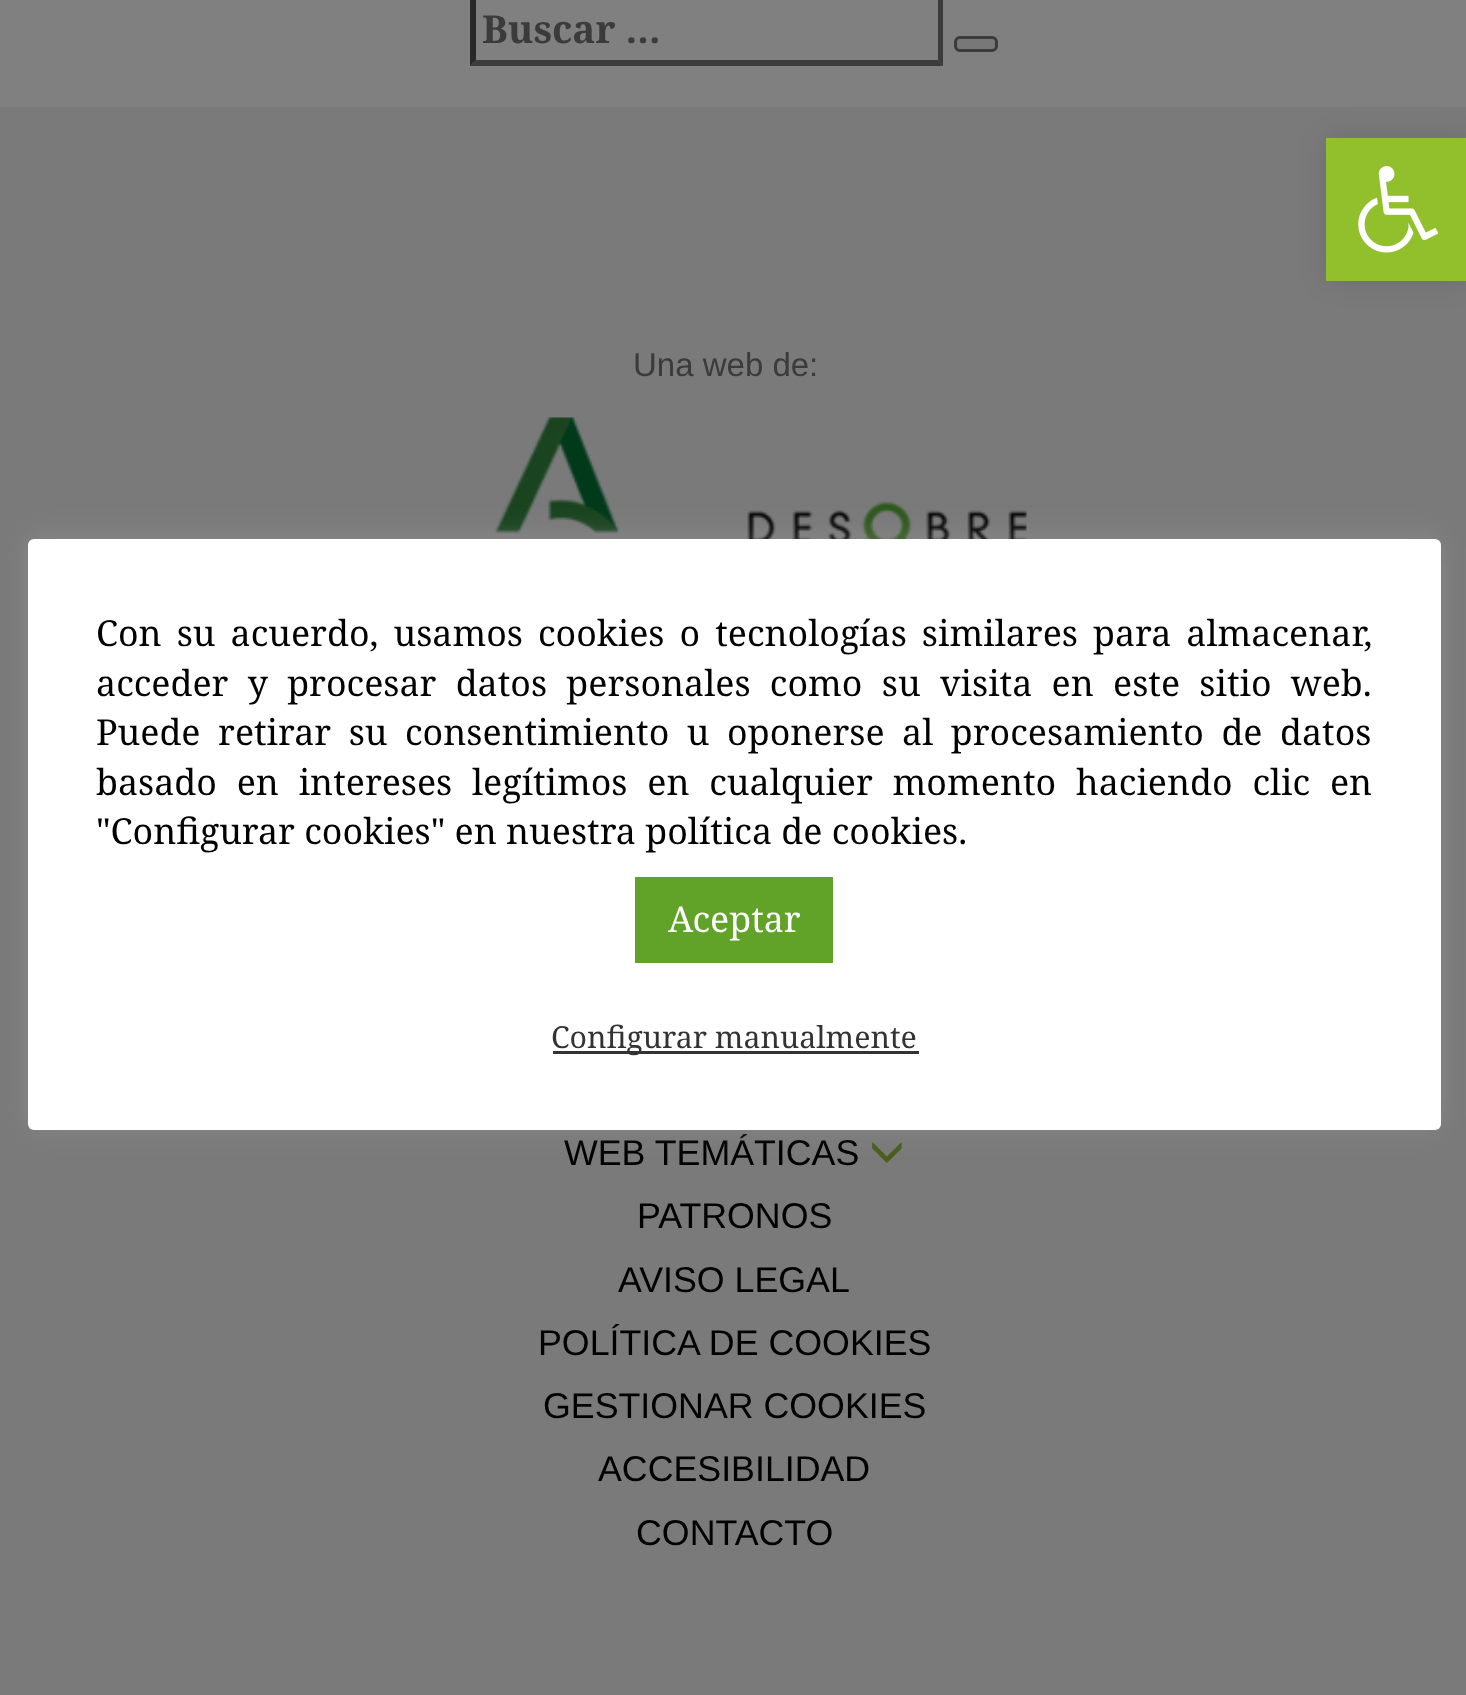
async function draw(canvas) {
  canvas.width = 1466
  canvas.height = 1695
  const ctx = canvas.getContext('2d')
  ctx.miterLimit = 4
  ctx.fontKerning = 'normal'
  async function loadImage(src) {
    const img = new Image()
    img.src = src
    await img.decode()
    return img
  }

  ctx.fillStyle = '#808080'
  ctx.fillRect(0, 0, 1466, 1695)
  ctx.fillStyle = '#3b3b3b'
  ctx.beginPath()
  ctx.moveTo(943, -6)
  ctx.lineTo(943, 66)
  ctx.lineTo(938, 60)
  ctx.lineTo(938, 0)
  ctx.closePath()
  ctx.fill()
  ctx.beginPath()
  ctx.moveTo(943, 66)
  ctx.lineTo(470, 66)
  ctx.lineTo(476, 60)
  ctx.lineTo(938, 60)
  ctx.closePath()
  ctx.fill()
  ctx.fillStyle = '#282828'
  ctx.beginPath()
  ctx.moveTo(470, 66)
  ctx.lineTo(470, -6)
  ctx.lineTo(476, 0)
  ctx.lineTo(476, 60)
  ctx.closePath()
  ctx.fill()
  ctx.font = 'bold 38.5px Noto Serif'
  ctx.fillStyle = '#3b3b3b'
  ctx.fillText('Buscar …', 482, 43)
  ctx.fillStyle = '#787878'
  ctx.beginPath()
  ctx.roundRect(955.5, 37.5, 41, 13, 4.5)
  ctx.fill()
  ctx.strokeStyle = '#3b3b3b'
  ctx.lineWidth = 3
  ctx.stroke()
  ctx.fillStyle = '#7a7a7a'
  ctx.fillRect(0, 107, 1466, 1588)
  ctx.font = '33px Liberation Sans'
  ctx.fillStyle = '#3b3b3b'
  ctx.fillText('Una web de:', 633, 376)
  ctx.drawImage(await loadImage('image0.png'), 494, 417, 126, 117)
  ctx.drawImage(await loadImage('image1.png'), 747, 501, 280, 38)
  ctx.font = '35.75px Liberation Sans'
  ctx.fillStyle = '#000'
  ctx.fillText('WEB TEMÁTICAS', 564, 1165)
  ctx.drawImage(await loadImage('image2.png'), 872, 1142, 30, 21)
  ctx.fillText('PATRONOS', 637, 1228)
  ctx.fillText('AVISO LEGAL', 618, 1292)
  ctx.fillText('POLÍTICA DE COOKIES', 538, 1355)
  ctx.fillText('GESTIONAR COOKIES', 543, 1418)
  ctx.fillText('ACCESIBILIDAD', 598, 1481)
  ctx.fillText('CONTACTO', 636, 1545)
  ctx.fillStyle = '#acabab4d'
  ctx.filter = 'blur(14px)'
  ctx.beginPath()
  ctx.roundRect(28, 536, 1413, 592, 6)
  ctx.fill()
  ctx.filter = 'none'
  ctx.fillStyle = '#fff'
  ctx.beginPath()
  ctx.roundRect(28, 539, 1413, 591, 6)
  ctx.fill()
  ctx.wordSpacing = '5.75px'
  ctx.font = '35.75px Noto Serif'
  ctx.fillStyle = '#000'
  ctx.fillText('Con su acuerdo, usamos cookies o tecnologías similares para almacenar,', 96, 646)
  ctx.wordSpacing = '10px'
  ctx.fillText('acceder y procesar datos personales como su visita en este sitio web.', 96, 696)
  ctx.wordSpacing = '8.25px'
  ctx.fillText('Puede retirar su consentimiento u oponerse al procesamiento de datos', 96, 745)
  ctx.wordSpacing = '10.5px'
  ctx.fillText('basado en intereses legítimos en cualquier momento haciendo clic en', 96, 795)
  ctx.wordSpacing = '0px'
  ctx.fillText('"Configurar cookies" en nuestra política de cookies.', 96, 844)
  ctx.fillStyle = '#61a229'
  ctx.fillRect(635, 877, 198, 86)
  ctx.fillStyle = '#fff'
  ctx.fillText('Aceptar', 668, 932)
  ctx.fillStyle = '#333'
  ctx.fillRect(553, 1051, 366, 3)
  ctx.font = '30.25px Noto Serif'
  ctx.fillText('Configurar manualmente', 551, 1048)
  ctx.fillStyle = '#0000001a'
  ctx.filter = 'blur(14px)'
  ctx.beginPath()
  ctx.rect(1326, 138, 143, 143)
  ctx.fill()
  ctx.filter = 'none'
  ctx.fillStyle = '#92c02d'
  ctx.fillRect(1326, 138, 140, 143)
  ctx.drawImage(await loadImage('image3.png'), 1358, 166, 81, 87)
}

draw(document.querySelector('canvas'))
